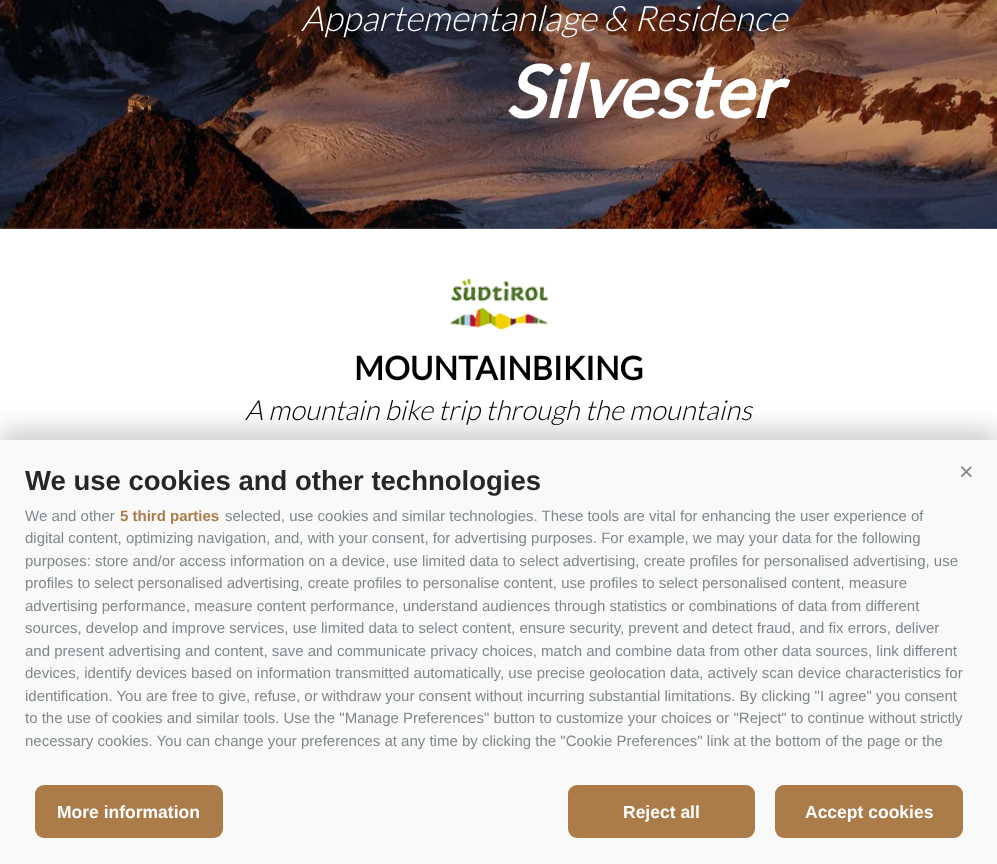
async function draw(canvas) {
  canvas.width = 997
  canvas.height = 864
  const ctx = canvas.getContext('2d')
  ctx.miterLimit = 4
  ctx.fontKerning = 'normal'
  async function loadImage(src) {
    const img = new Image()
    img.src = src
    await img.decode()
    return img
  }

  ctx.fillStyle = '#fff'
  ctx.fillRect(0, 0, 997, 864)
  ctx.drawImage(await loadImage('image0.png'), 0, 0, 997, 229)
  ctx.font = 'italic 300 35px Lato'
  ctx.fillText('Appartementanlage & Residence', 301, 31)
  ctx.font = 'italic bold 72.5px Lato'
  ctx.fillText('Silvester', 505, 118)
  ctx.drawImage(await loadImage('image1.png'), 450, 279, 98, 50)
  ctx.font = 'bold 32.5px Lato'
  ctx.fillStyle = '#010101'
  ctx.fillText('MOUNTAINBIKING', 354, 380)
  ctx.font = 'italic 300 27.5px Lato'
  ctx.fillText('A mountain bike trip through the mountains', 245, 420)
  ctx.fillStyle = '#00000033'
  ctx.filter = 'blur(12.5px)'
  ctx.beginPath()
  ctx.rect(0, 430, 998, 425)
  ctx.fill()
  ctx.filter = 'none'
  ctx.fillStyle = '#f9f9f9'
  ctx.fillRect(0, 440, 997, 424)
  ctx.font = 'bold 27.5px Liberation Sans'
  ctx.fillStyle = '#262628'
  ctx.fillText('We use cookies and other technologies', 25, 490)
  ctx.font = '25px Liberation Sans'
  ctx.fillStyle = '#80888c'
  ctx.fillText('×', 959, 480)
  ctx.font = '15px Liberation Sans'
  ctx.fillText('We and other', 25, 521)
  ctx.font = 'bold 15px Liberation Sans'
  ctx.fillStyle = '#ab7c4a'
  ctx.fillText('5 third parties', 120, 521)
  ctx.font = '15px Liberation Sans'
  ctx.fillStyle = '#80888c'
  ctx.fillText('selected, use cookies and similar technologies. These tools are vital for enhancing the user experience of', 225, 521)
  ctx.fillText('digital content, optimizing navigation, and, with your consent, for advertising purposes. For example, we may your data for the following', 25, 543)
  ctx.fillText('purposes: store and/or access information on a device, use limited data to select advertising, create profiles for personalised advertising, use', 25, 566)
  ctx.fillText('profiles to select personalised advertising, create profiles to personalise content, use profiles to select personalised content, measure', 25, 588)
  ctx.fillText('advertising performance, measure content performance, understand audiences through statistics or combinations of data from different', 25, 611)
  ctx.fillText('sources, develop and improve services, use limited data to select content, ensure security, prevent and detect fraud, and fix errors, deliver', 25, 633)
  ctx.fillText('and present advertising and content, save and communicate privacy choices, match and combine data from other data sources, link different', 25, 656)
  ctx.fillText('devices, identify devices based on information transmitted automatically, use precise geolocation data, actively scan device characteristics for', 25, 678)
  ctx.fillText('identification. You are free to give, refuse, or withdraw your consent without incurring substantial limitations. By clicking "I agree" you consent', 25, 701)
  ctx.fillText('to the use of cookies and similar tools. Use the "Manage Preferences" button to customize your choices or "Reject" to continue without strictly', 25, 723)
  ctx.fillText('necessary cookies. You can change your preferences at any time by clicking the "Cookie Preferences" link at the bottom of the page or the', 25, 746)
  ctx.fillStyle = '#ab7c4a'
  ctx.beginPath()
  ctx.roundRect(35, 785, 188, 53, 9)
  ctx.fill()
  ctx.font = 'bold 17.5px Liberation Sans'
  ctx.fillStyle = '#fff'
  ctx.fillText('More information', 57, 818)
  ctx.fillStyle = '#ab7c4a'
  ctx.beginPath()
  ctx.roundRect(568, 785, 187, 53, 9)
  ctx.fill()
  ctx.fillStyle = '#fff'
  ctx.fillText('Reject all', 623, 818)
  ctx.fillStyle = '#ab7c4a'
  ctx.beginPath()
  ctx.roundRect(775, 785, 188, 53, 9)
  ctx.fill()
  ctx.fillStyle = '#fff'
  ctx.fillText('Accept cookies', 805, 818)
}

draw(document.querySelector('canvas'))
